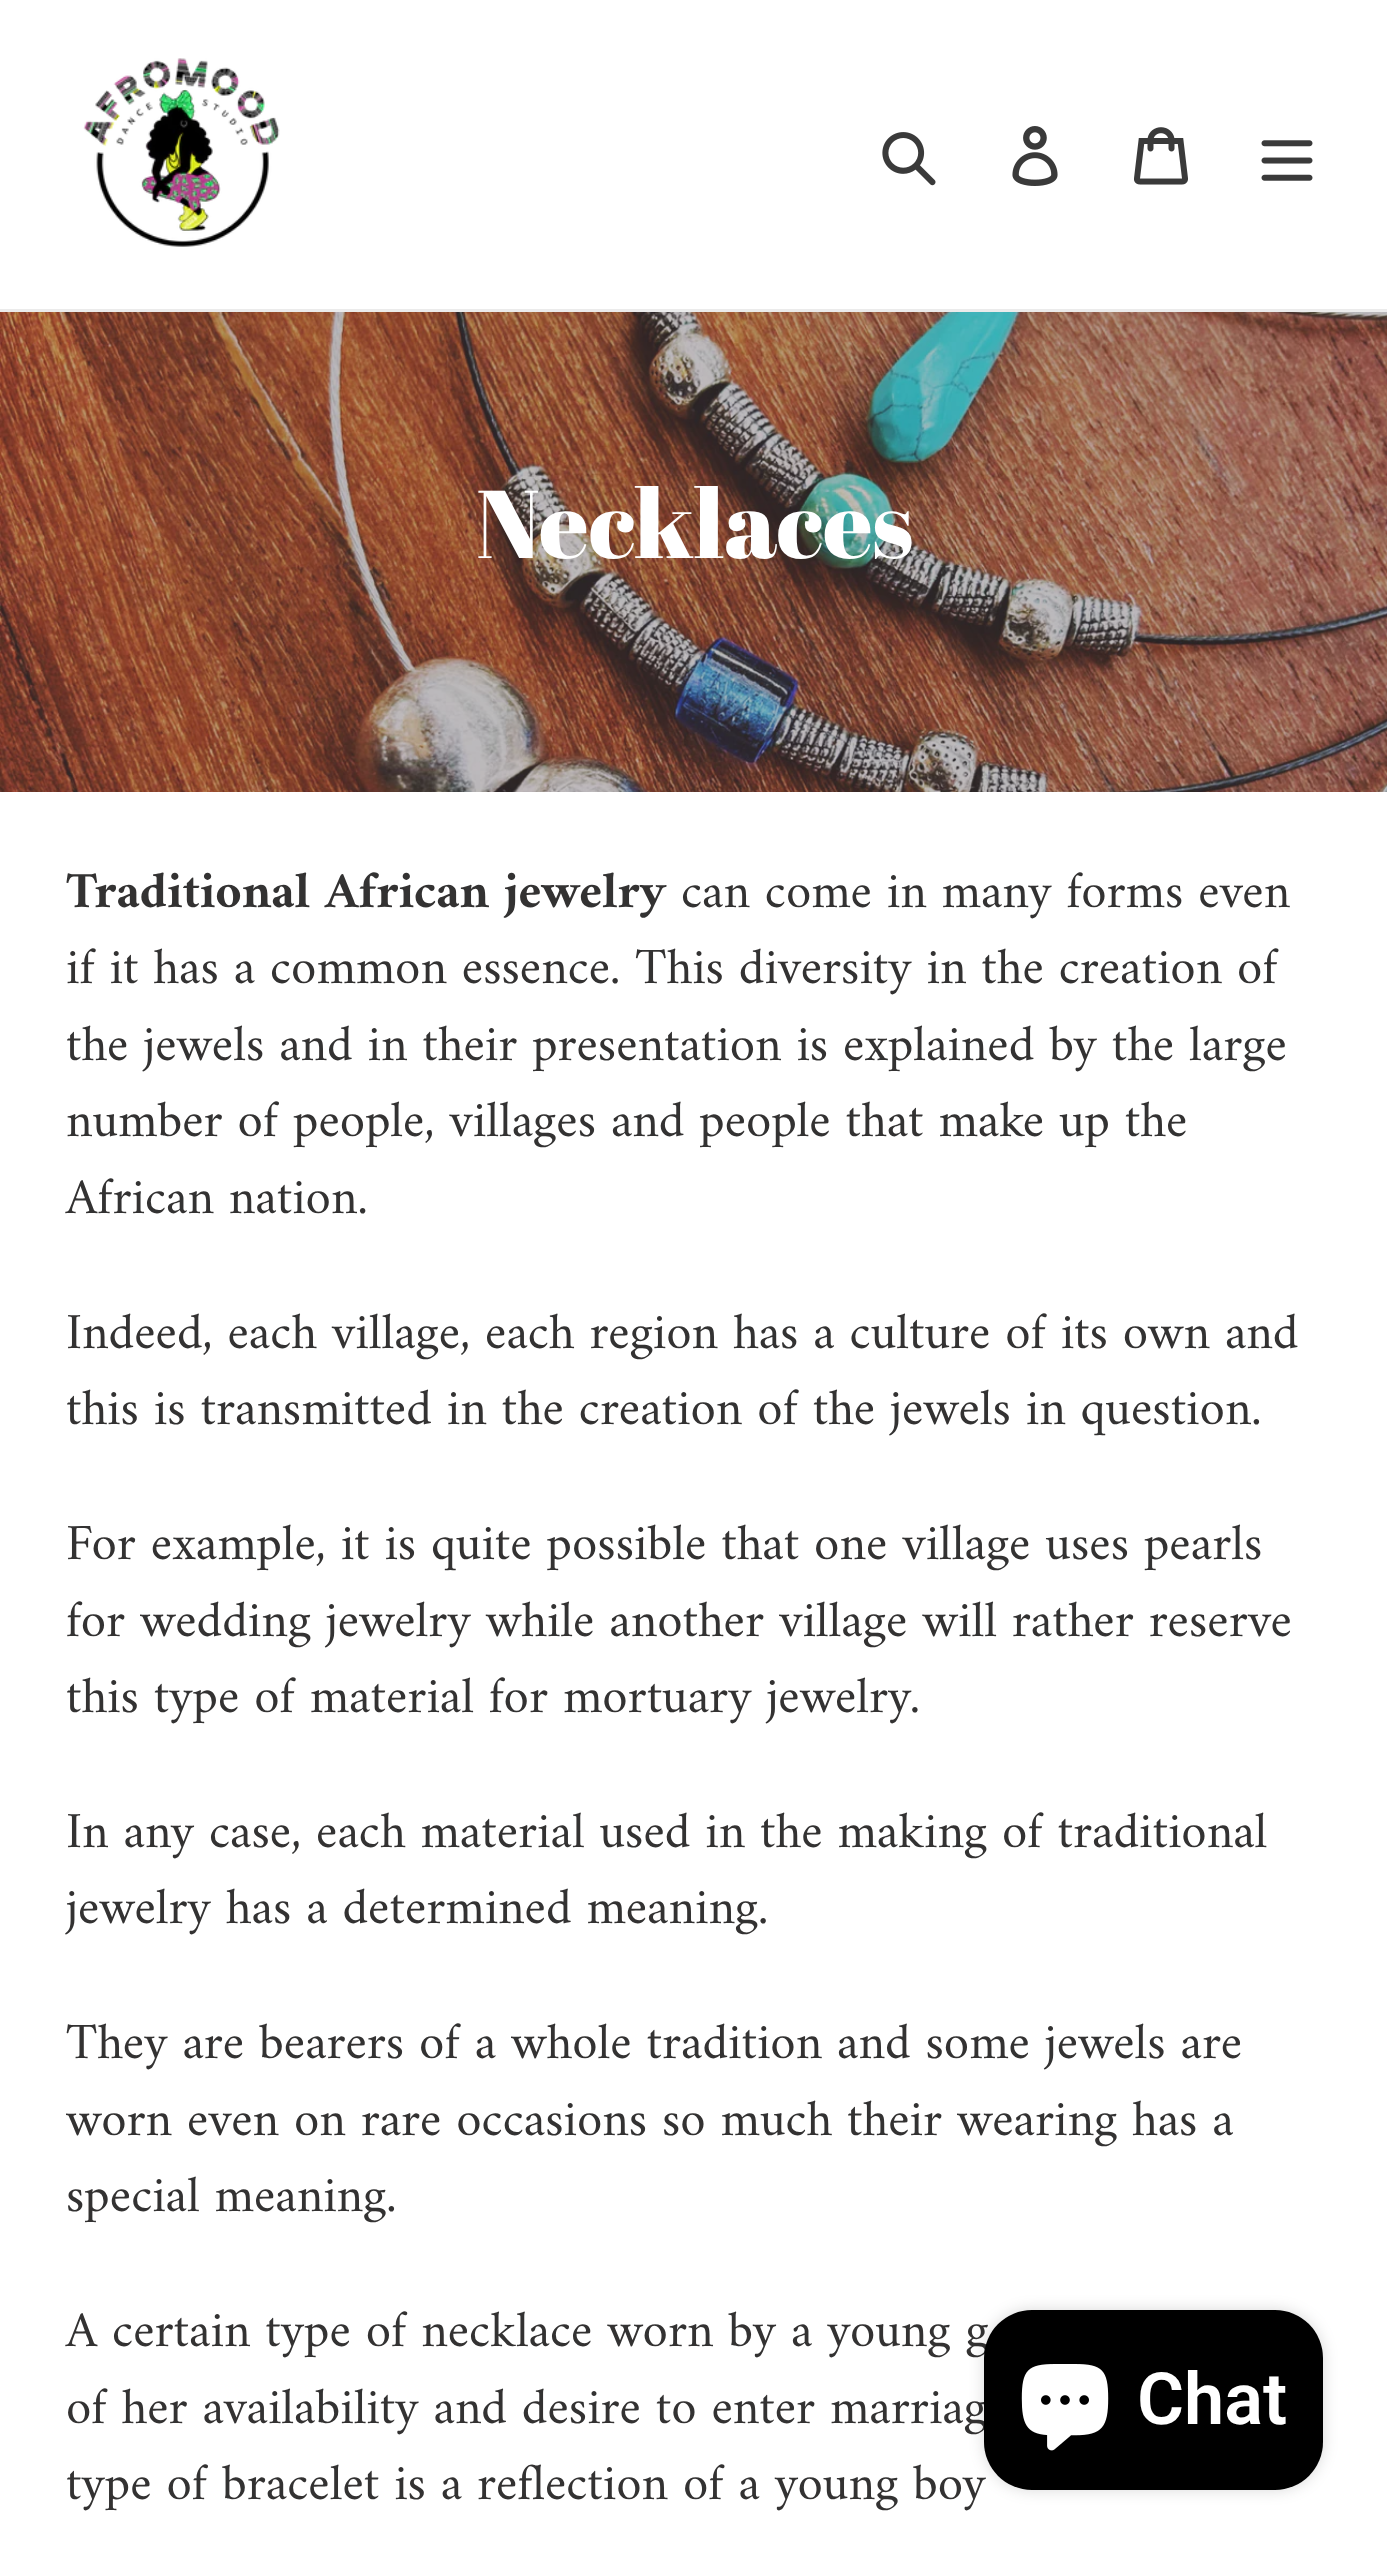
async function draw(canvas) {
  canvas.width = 1387
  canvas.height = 2551
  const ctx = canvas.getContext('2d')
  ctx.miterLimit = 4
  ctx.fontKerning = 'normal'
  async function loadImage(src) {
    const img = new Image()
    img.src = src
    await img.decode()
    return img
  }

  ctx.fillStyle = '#fff'
  ctx.fillRect(0, 0, 1387, 2551)
  ctx.fillStyle = '#ebebeb'
  ctx.fillRect(0, 309, 1387, 3)
  ctx.drawImage(await loadImage('image0.png'), 83, 58, 197, 189)
  ctx.drawImage(await loadImage('image1.png'), 882, 132, 54, 54)
  ctx.drawImage(await loadImage('image2.png'), 1012, 126, 46, 60)
  ctx.drawImage(await loadImage('image3.png'), 1134, 127, 54, 58)
  ctx.drawImage(await loadImage('image4.png'), 1261, 140, 52, 41)
  ctx.drawImage(await loadImage('image5.png'), 0, 312, 1387, 480)
  ctx.font = '96px Abril Fatface'
  ctx.fillStyle = '#fff'
  ctx.fillText('Necklaces', 476, 558)
  ctx.font = 'bold 51px Amiri'
  ctx.fillStyle = '#333232'
  ctx.fillText('Traditional African jewelry', 66, 907)
  ctx.font = '51px Amiri'
  ctx.fillText('can come in many forms even', 681, 907)
  ctx.fillText('if it has a common essence. This diversity in the creation of', 66, 983)
  ctx.fillText('the jewels and in their presentation is explained by the large', 66, 1060)
  ctx.fillText('number of people, villages and people that make up the', 66, 1136)
  ctx.fillText('African nation.', 66, 1213)
  ctx.fillText('Indeed, each village, each region has a culture of its own and', 66, 1348)
  ctx.fillText('this is transmitted in the creation of the jewels in question.', 66, 1424)
  ctx.fillText('For example, it is quite possible that one village uses pearls', 66, 1559)
  ctx.fillText('for wedding jewelry while another village will rather reserve', 66, 1636)
  ctx.fillText('this type of material for mortuary jewelry.', 66, 1712)
  ctx.fillText('In any case, each material used in the making of traditional', 66, 1847)
  ctx.fillText('jewelry has a determined meaning.', 66, 1923)
  ctx.fillText('They are bearers of a whole tradition and some jewels are', 66, 2058)
  ctx.fillText('worn even on rare occasions so much their wearing has a', 66, 2135)
  ctx.fillText('special meaning.', 66, 2211)
  ctx.fillText('A certain type of necklace worn by a young g', 66, 2346)
  ctx.fillText('of her availability and desire to enter marriag', 66, 2423)
  ctx.fillText('type of bracelet is a reflection of a young boy', 66, 2499)
  ctx.fillStyle = '#00000026'
  ctx.filter = 'blur(7.5px)'
  ctx.beginPath()
  ctx.roundRect(984, 2310, 339, 180, 48)
  ctx.fill()
  ctx.filter = 'none'
  ctx.fillStyle = '#000'
  ctx.beginPath()
  ctx.roundRect(984, 2310, 339, 180, 48)
  ctx.fill()
  ctx.drawImage(await loadImage('image6.png'), 1021, 2364, 88, 87)
  ctx.font = '600 72px Roboto'
  ctx.fillStyle = '#fff'
  ctx.fillText('Chat', 1137, 2424)
}

draw(document.querySelector('canvas'))
